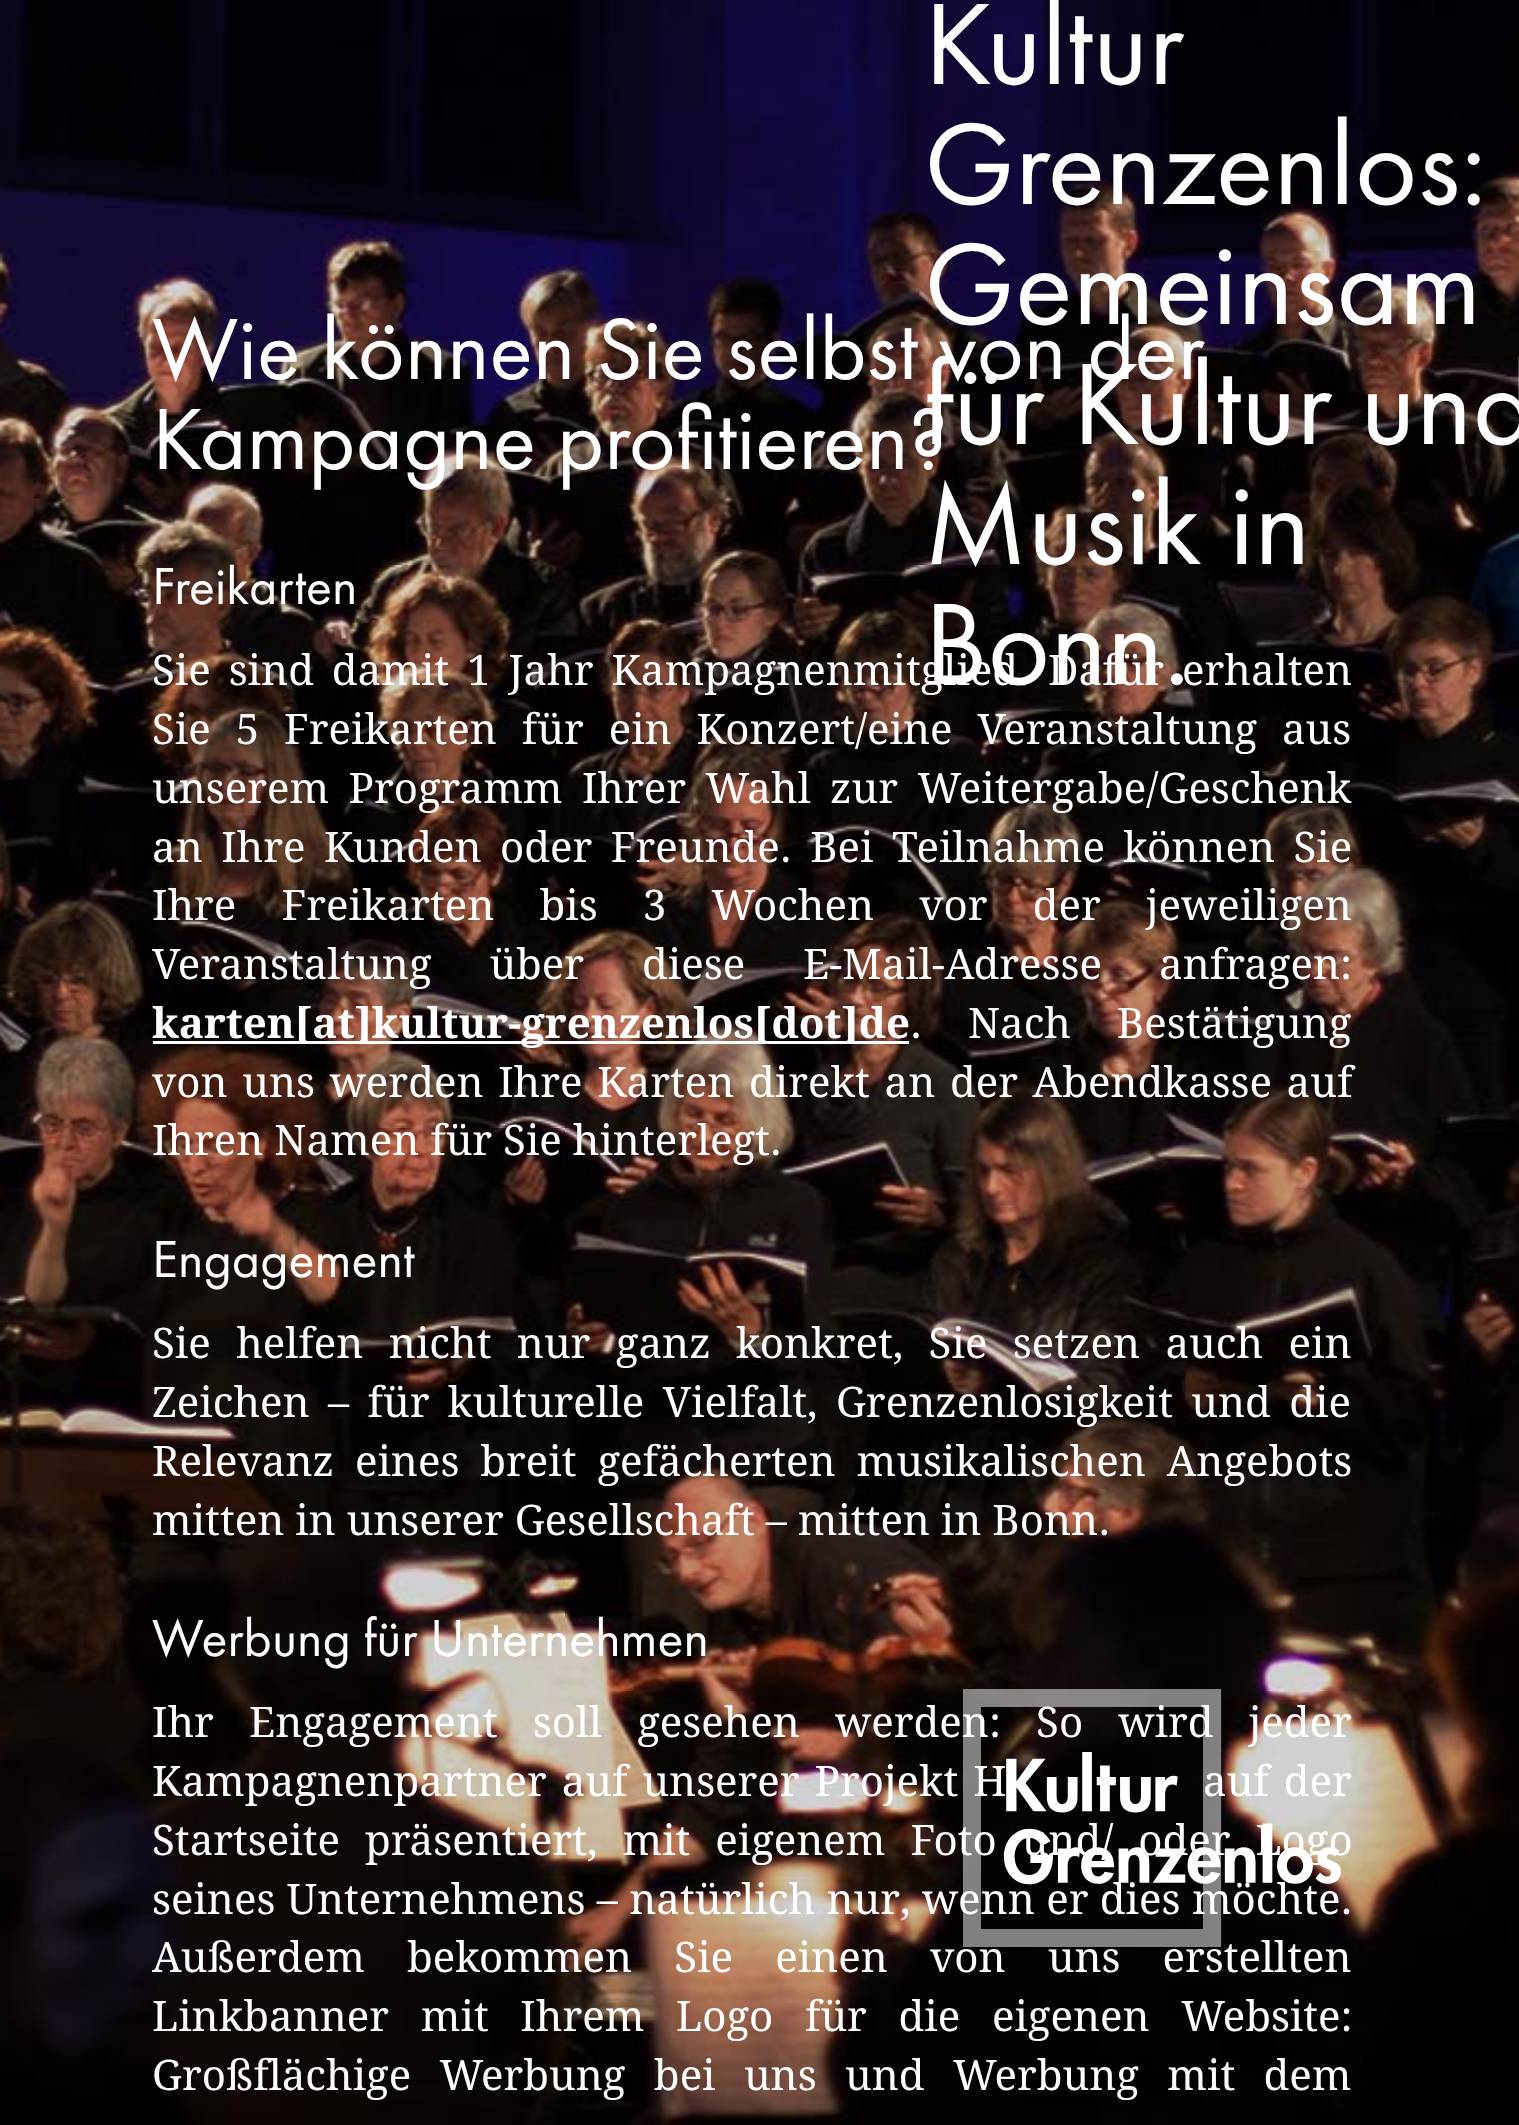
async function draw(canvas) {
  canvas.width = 1519
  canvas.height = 2125
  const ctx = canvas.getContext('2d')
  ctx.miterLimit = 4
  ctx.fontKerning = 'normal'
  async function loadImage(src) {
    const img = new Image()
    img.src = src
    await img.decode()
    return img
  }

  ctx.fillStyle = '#fff'
  ctx.fillRect(0, 0, 1519, 2125)
  ctx.drawImage(await loadImage('image0.png'), 0, 0, 1519, 2125)
  ctx.font = '120px Futura PT'
  ctx.fillText('Kultur', 924, 84)
  ctx.fillText('Grenzenlos:', 924, 204)
  ctx.fillText('Gemeinsam', 924, 324)
  ctx.fillText('für Kultur und', 924, 444)
  ctx.fillText('Musik in', 924, 564)
  ctx.fillText('Bonn.', 924, 684)
  ctx.font = '90px Futura PT'
  ctx.fillText('Wie können Sie selbst von der', 152, 379)
  ctx.fillText('Kampagne profitieren?', 152, 469)
  ctx.font = '54px Futura PT'
  ctx.fillText('Freikarten', 152, 604)
  ctx.wordSpacing = '7px'
  ctx.font = '42px Droid Serif'
  ctx.fillText('Sie sind damit 1 Jahr Kampagnenmitglied. Dafür erhalten', 152, 685)
  ctx.wordSpacing = '14px'
  ctx.fillText('Sie 5 Freikarten für ein Konzert/eine Veranstaltung aus', 152, 744)
  ctx.wordSpacing = '8.5px'
  ctx.fillText('unserem Programm Ihrer Wahl zur Weitergabe/Geschenk', 152, 803)
  ctx.wordSpacing = '7.5px'
  ctx.fillText('an Ihre Kunden oder Freunde. Bei Teilnahme können Sie', 152, 862)
  ctx.wordSpacing = '34.25px'
  ctx.fillText('Ihre Freikarten bis 3 Wochen vor der jeweiligen', 152, 920)
  ctx.wordSpacing = '47px'
  ctx.fillText('Veranstaltung über diese E-Mail-Adresse', 152, 979)
  ctx.wordSpacing = '0px'
  ctx.fillText('anfragen:', 1159, 979)
  ctx.fillRect(153, 1041, 756, 3)
  ctx.font = 'bold 42px Droid Serif'
  ctx.fillText('karten[at]kultur-grenzenlos[dot]de', 152, 1038)
  ctx.wordSpacing = '35px'
  ctx.font = '42px Droid Serif'
  ctx.fillText('. Nach Bestätigung', 910, 1038)
  ctx.wordSpacing = '3.75px'
  ctx.fillText('von uns werden Ihre Karten direkt an der Abendkasse auf', 152, 1097)
  ctx.wordSpacing = '0px'
  ctx.fillText('Ihren Namen für Sie hinterlegt.', 152, 1155)
  ctx.font = '54px Futura PT'
  ctx.fillText('Engagement', 152, 1277)
  ctx.wordSpacing = '14.5px'
  ctx.font = '42px Droid Serif'
  ctx.fillText('Sie helfen nicht nur ganz konkret, Sie setzen auch ein', 152, 1358)
  ctx.wordSpacing = '7.5px'
  ctx.fillText('Zeichen – für kulturelle Vielfalt, Grenzenlosigkeit und die', 152, 1417)
  ctx.wordSpacing = '10px'
  ctx.fillText('Relevanz eines breit gefächerten musikalischen Angebots', 152, 1476)
  ctx.wordSpacing = '0px'
  ctx.fillText('mitten in unserer Gesellschaft – mitten in Bonn.', 152, 1535)
  ctx.font = '54px Futura PT'
  ctx.fillText('Werbung für Unternehmen', 152, 1656)
  ctx.drawImage(await loadImage('image1.png'), 963, 1689, 378, 258)
  ctx.wordSpacing = '24.25px'
  ctx.font = '42px Droid Serif'
  ctx.fillText('Ihr Engagement soll gesehen werden: So wird jeder', 152, 1737)
  ctx.wordSpacing = '4px'
  ctx.fillText('Kampagnenpartner auf unserer Projekt H', 152, 1796)
  ctx.fillText('auf der', 1203, 1796)
  ctx.wordSpacing = '14px'
  ctx.fillText('Startseite präsentiert, mit eigenem Foto und/ oder Logo', 152, 1855)
  ctx.wordSpacing = '0.5px'
  ctx.fillText('seines Unternehmens – natürlich nur, wenn er dies möchte.', 152, 1914)
  ctx.wordSpacing = '31.25px'
  ctx.fillText('Außerdem bekommen Sie einen von uns erstellten', 152, 1972)
  ctx.wordSpacing = '20.75px'
  ctx.fillText('Linkbanner mit Ihrem Logo für die eigenen Website:', 152, 2031)
  ctx.wordSpacing = '17.5px'
  ctx.fillText('Großflächige Werbung bei uns und Werbung mit dem', 152, 2090)
}

draw(document.querySelector('canvas'))
